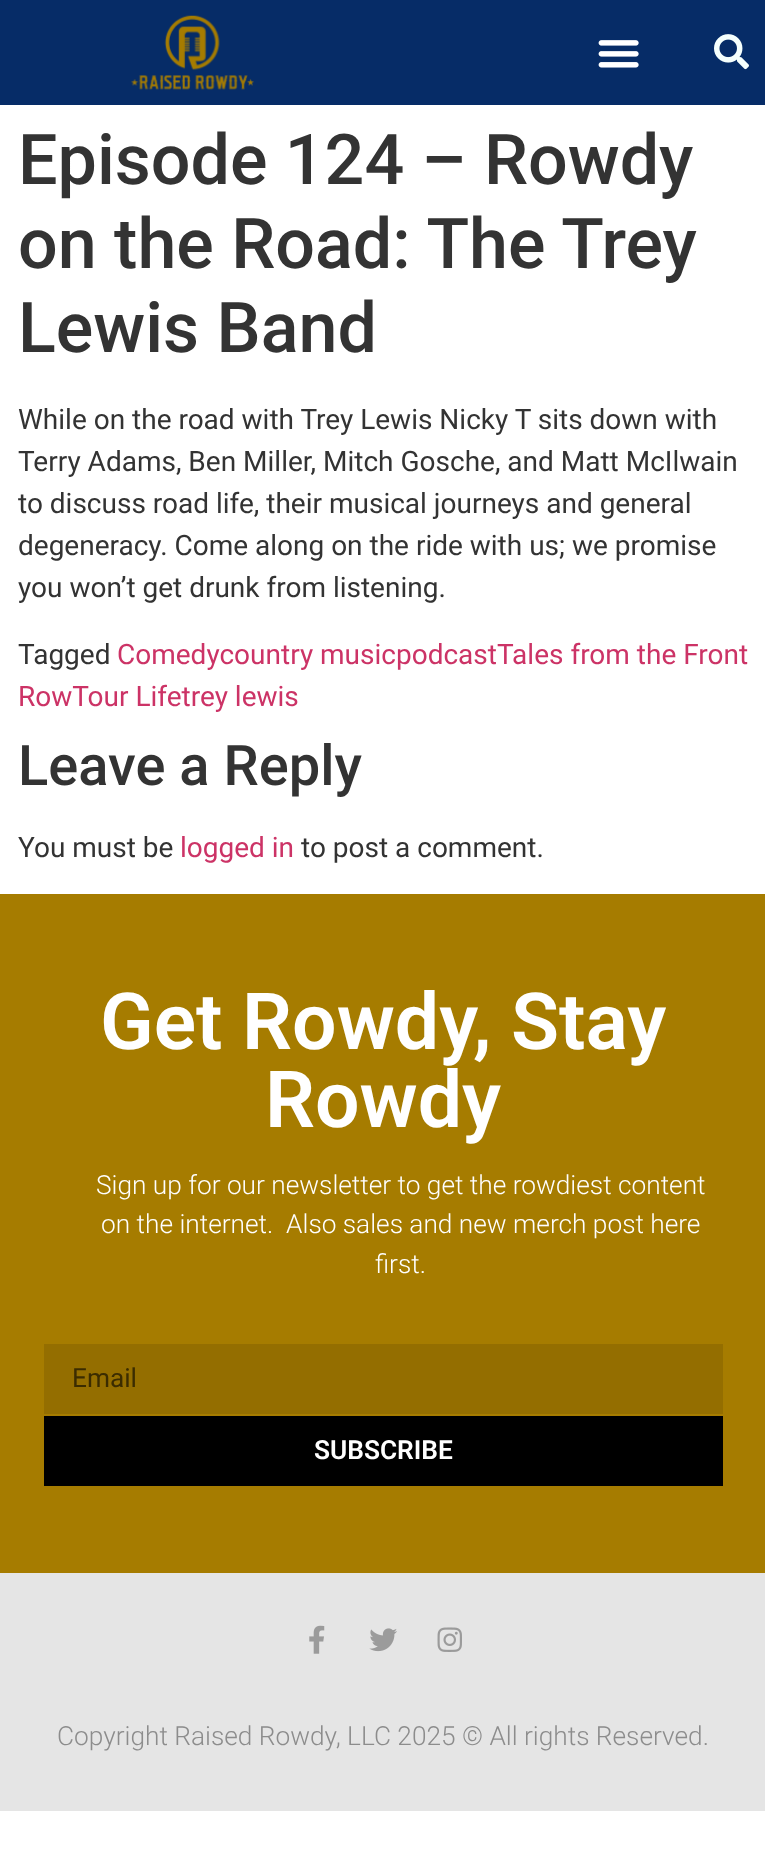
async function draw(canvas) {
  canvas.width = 765
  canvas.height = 1859
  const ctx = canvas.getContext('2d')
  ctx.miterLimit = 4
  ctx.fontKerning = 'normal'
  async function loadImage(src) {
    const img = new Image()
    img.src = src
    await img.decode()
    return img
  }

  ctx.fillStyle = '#fff'
  ctx.fillRect(0, 0, 765, 1859)
  ctx.fillStyle = '#062c67'
  ctx.fillRect(0, 0, 765, 105)
  ctx.drawImage(await loadImage('image0.png'), 131, 15, 123, 75)
  ctx.drawImage(await loadImage('image1.png'), 598, 40, 41, 28)
  ctx.drawImage(await loadImage('image2.png'), 714, 34, 35, 36)
  ctx.font = '500 70px Roboto'
  ctx.fillStyle = '#333'
  ctx.fillText('Episode 124 – Rowdy', 18, 184)
  ctx.fillText('on the Road: The Trey', 18, 268)
  ctx.fillText('Lewis Band', 18, 352)
  ctx.font = '28px Roboto'
  ctx.fillText('While on the road with Trey Lewis Nicky T sits down with', 18, 429)
  ctx.fillText('Terry Adams, Ben Miller, Mitch Gosche, and Matt McIlwain', 18, 471)
  ctx.fillText('to discuss road life, their musical journeys and general', 18, 513)
  ctx.fillText('degeneracy. Come along on the ride with us; we promise', 18, 555)
  ctx.fillText('you won’t get drunk from listening.', 18, 597)
  ctx.fillText('Tagged', 18, 664)
  ctx.fillStyle = '#c36'
  ctx.fillText('Comedycountry musicpodcastTales from the Front', 117, 664)
  ctx.fillText('RowTour Lifetrey lewis', 18, 706)
  ctx.font = '500 56px Roboto'
  ctx.fillStyle = '#333'
  ctx.fillText('Leave a Reply', 18, 785)
  ctx.font = '28px Roboto'
  ctx.fillText('You must be', 18, 857)
  ctx.fillStyle = '#c36'
  ctx.fillText('logged in', 180, 857)
  ctx.fillStyle = '#333'
  ctx.fillText('to post a comment.', 301, 857)
  ctx.fillStyle = '#a67c00'
  ctx.fillRect(0, 894, 765, 679)
  ctx.font = '600 78.75px Roboto'
  ctx.fillStyle = '#fff'
  ctx.fillText('Get Rowdy, Stay', 100, 1049)
  ctx.fillText('Rowdy', 265, 1127)
  ctx.font = '300 26.25px Roboto'
  ctx.fillText('Sign up for our newsletter to get the rowdiest content', 96, 1194)
  ctx.fillText('on the internet.  Also sales and new merch post here', 101, 1233)
  ctx.fillText('first.', 375, 1273)
  ctx.fillStyle = '#946e00'
  ctx.fillRect(44, 1344, 679, 70)
  ctx.font = '26.25px Roboto'
  ctx.fillStyle = '#3b2c00'
  ctx.fillText('Email', 72, 1387)
  ctx.fillStyle = '#000'
  ctx.fillRect(44, 1416, 679, 70)
  ctx.font = '600 26.25px Roboto'
  ctx.fillStyle = '#fff'
  ctx.fillText('SUBSCRIBE', 314, 1459)
  ctx.fillStyle = '#e5e5e5'
  ctx.fillRect(0, 1573, 765, 238)
  ctx.drawImage(await loadImage('image3.png'), 309, 1625, 16, 29)
  ctx.drawImage(await loadImage('image4.png'), 369, 1628, 28, 24)
  ctx.drawImage(await loadImage('image5.png'), 437, 1627, 25, 25)
  ctx.font = '300 26.25px Roboto'
  ctx.fillStyle = '#8c8c8c'
  ctx.fillText('Copyright Raised Rowdy, LLC 2025 © All rights Reserved.', 57, 1745)
}

draw(document.querySelector('canvas'))
